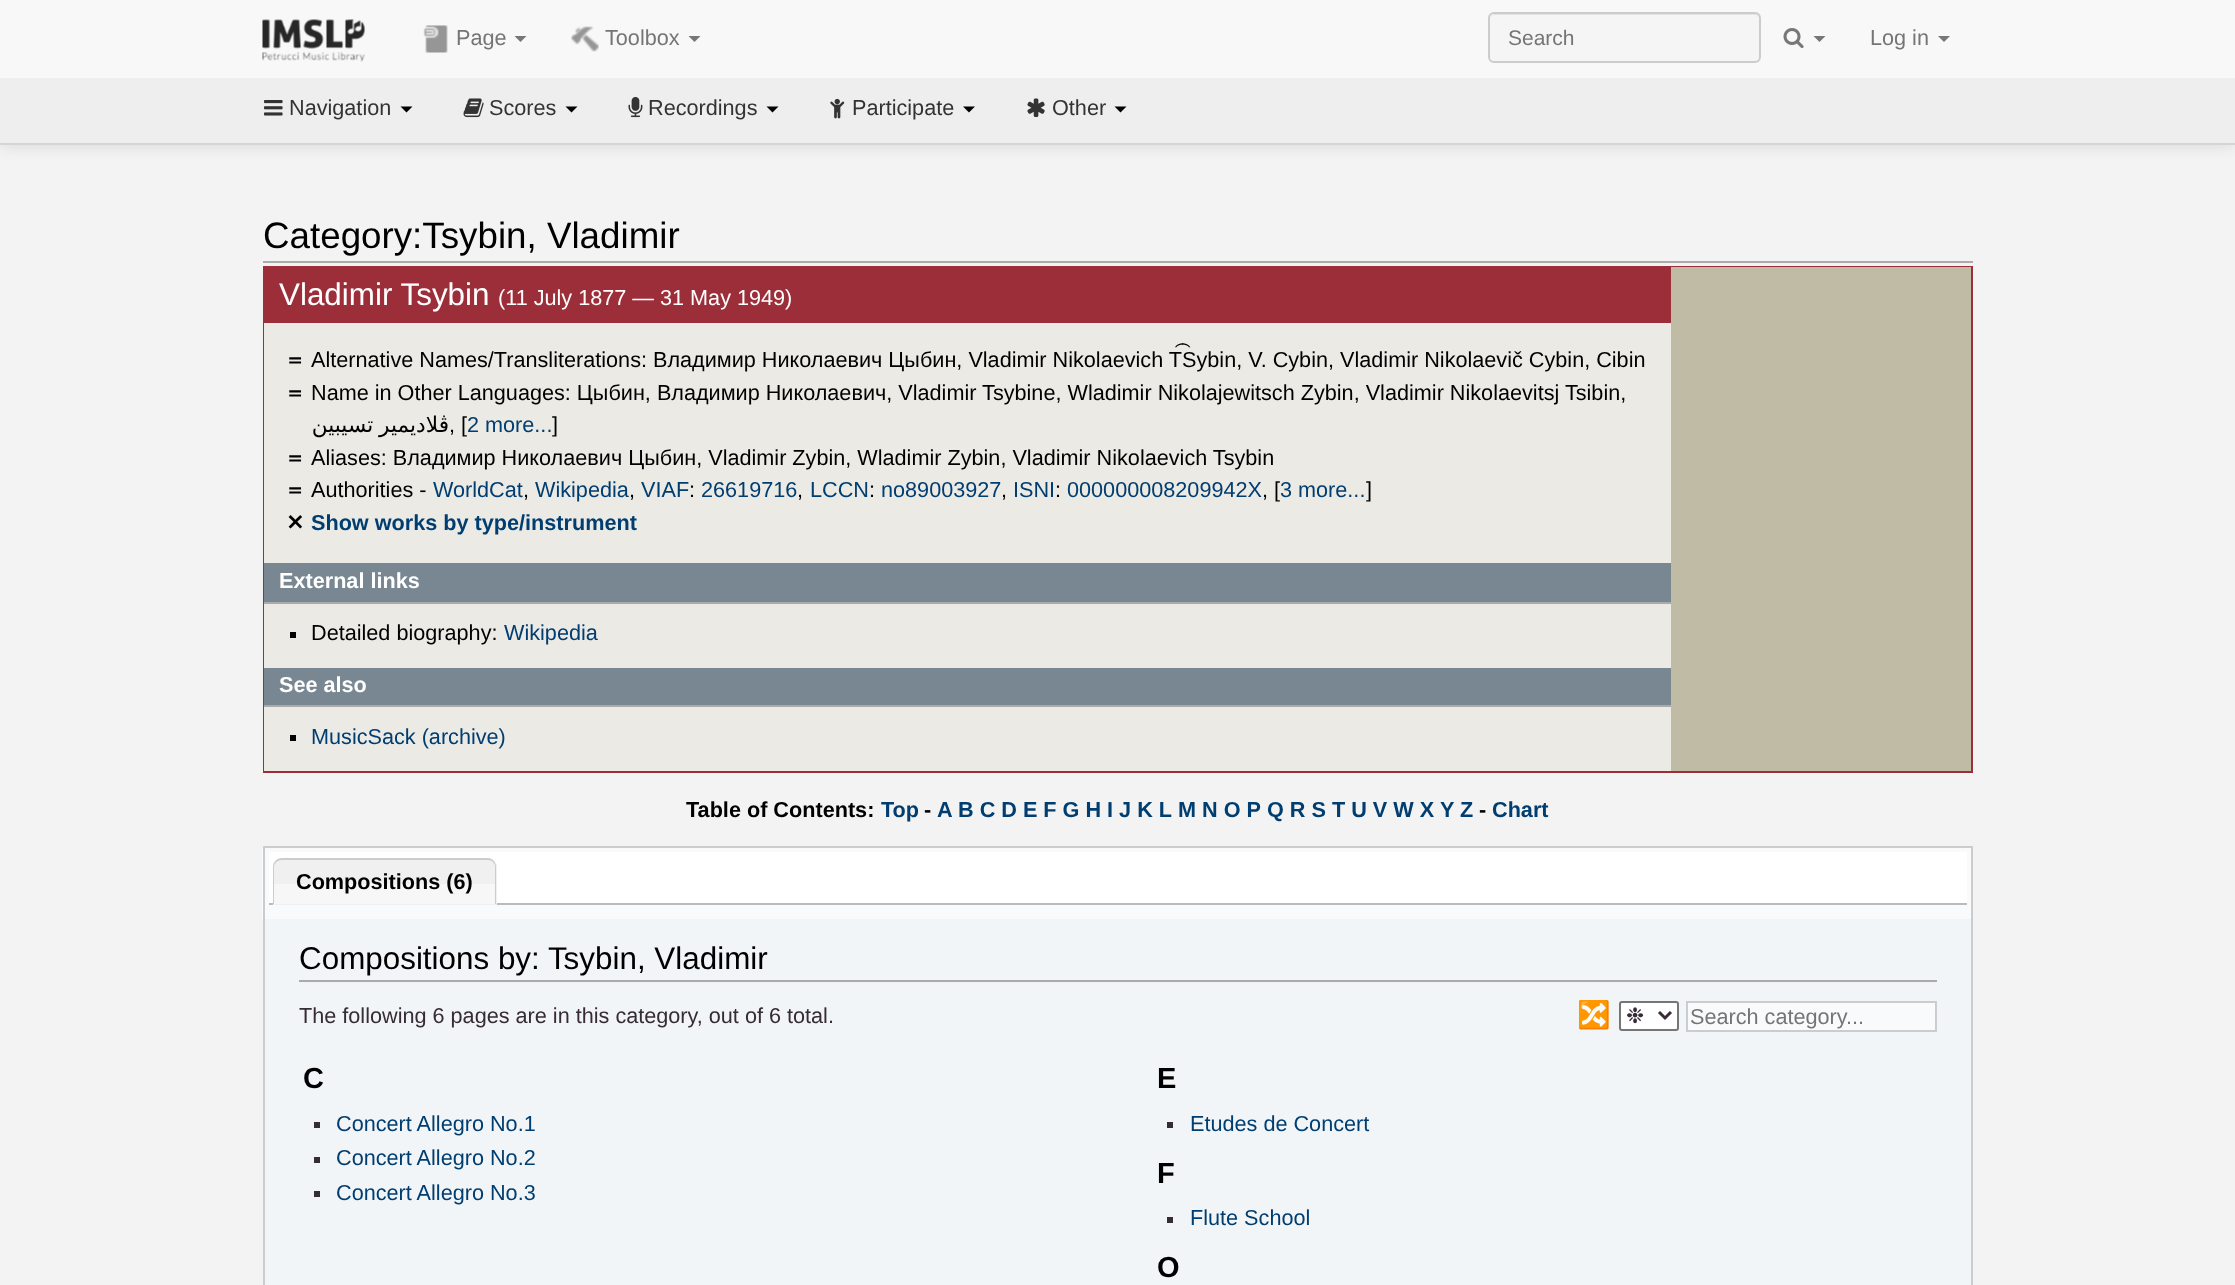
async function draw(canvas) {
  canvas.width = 2235
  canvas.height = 1285
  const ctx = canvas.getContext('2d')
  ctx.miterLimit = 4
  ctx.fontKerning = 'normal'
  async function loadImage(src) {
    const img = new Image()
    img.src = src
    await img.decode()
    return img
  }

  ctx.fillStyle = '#f3f3f3'
  ctx.fillRect(0, 0, 2235, 1285)
  ctx.fillStyle = '#0000001a'
  ctx.filter = 'blur(7.5px)'
  ctx.beginPath()
  ctx.rect(0, 80, 2235, 66)
  ctx.fill()
  ctx.filter = 'none'
  ctx.fillStyle = '#f8f8f8'
  ctx.fillRect(0, 0, 2235, 78)
  ctx.drawImage(await loadImage('image0.png'), 262, 19, 103, 43)
  ctx.drawImage(await loadImage('image1.png'), 423, 25, 25, 28)
  ctx.font = '21.65px Liberation Sans'
  ctx.fillStyle = '#757575'
  ctx.fillText('Page', 456, 45)
  ctx.fillStyle = '#777'
  ctx.beginPath()
  ctx.moveTo(514.5, 36)
  ctx.lineTo(526.5, 36)
  ctx.lineTo(520.5, 42)
  ctx.closePath()
  ctx.fill()
  ctx.drawImage(await loadImage('image2.png'), 571, 26, 28, 26)
  ctx.fillStyle = '#757575'
  ctx.fillText('Toolbox', 605, 45)
  ctx.fillStyle = '#777'
  ctx.beginPath()
  ctx.moveTo(688.5, 36)
  ctx.lineTo(700.5, 36)
  ctx.lineTo(694.5, 42)
  ctx.closePath()
  ctx.fill()
  ctx.fillStyle = '#f5f5f5'
  ctx.beginPath()
  ctx.roundRect(1488, 12, 273, 51, 6)
  ctx.fill()
  ctx.fillStyle = '#e3e3e3'
  ctx.beginPath()
  ctx.moveTo(1494, 15)
  ctx.lineTo(1755, 15)
  ctx.bezierCurveTo(1757, 15, 1760, 17, 1760, 20)
  ctx.bezierCurveTo(1760, 17, 1758, 14, 1755, 14)
  ctx.lineTo(1495, 14)
  ctx.bezierCurveTo(1492, 14, 1490, 17, 1490, 20)
  ctx.bezierCurveTo(1490, 17, 1492, 15, 1494, 15)
  ctx.closePath()
  ctx.fill()
  ctx.beginPath()
  ctx.roundRect(1489, 13, 271, 49, 5)
  ctx.strokeStyle = '#ccc'
  ctx.lineWidth = 2
  ctx.stroke()
  ctx.font = '21px Liberation Sans'
  ctx.fillStyle = '#757575'
  ctx.fillText('Search', 1508, 45)
  ctx.drawImage(await loadImage('image3.png'), 1783, 28, 21, 20)
  ctx.fillStyle = '#777'
  ctx.beginPath()
  ctx.moveTo(1813.5, 36)
  ctx.lineTo(1825.5, 36)
  ctx.lineTo(1819.5, 42)
  ctx.closePath()
  ctx.fill()
  ctx.font = '21.65px Liberation Sans'
  ctx.fillStyle = '#757575'
  ctx.fillText('Log in', 1870, 45)
  ctx.fillStyle = '#777'
  ctx.beginPath()
  ctx.moveTo(1938, 36)
  ctx.lineTo(1950, 36)
  ctx.lineTo(1944, 42)
  ctx.closePath()
  ctx.fill()
  ctx.fillStyle = '#eee'
  ctx.fillRect(0, 78, 2235, 65)
  ctx.fillStyle = '#d5d5d5'
  ctx.fillRect(0, 143, 2235, 2)
  ctx.drawImage(await loadImage('image4.png'), 264, 100, 19, 16)
  ctx.fillStyle = '#333'
  ctx.fillText('Navigation', 289, 115)
  ctx.fillStyle = '#000'
  ctx.beginPath()
  ctx.moveTo(400.5, 106.5)
  ctx.lineTo(412.5, 106.5)
  ctx.lineTo(406.5, 112.5)
  ctx.closePath()
  ctx.fill()
  ctx.drawImage(await loadImage('image5.png'), 463, 98, 21, 20)
  ctx.fillStyle = '#333'
  ctx.fillText('Scores', 489, 115)
  ctx.fillStyle = '#000'
  ctx.beginPath()
  ctx.moveTo(565.5, 106.5)
  ctx.lineTo(577.5, 106.5)
  ctx.lineTo(571.5, 112.5)
  ctx.closePath()
  ctx.fill()
  ctx.drawImage(await loadImage('image6.png'), 628, 96, 15, 22)
  ctx.fillStyle = '#333'
  ctx.fillText('Recordings', 648, 115)
  ctx.fillStyle = '#000'
  ctx.beginPath()
  ctx.moveTo(766.5, 106.5)
  ctx.lineTo(778.5, 106.5)
  ctx.lineTo(772.5, 112.5)
  ctx.closePath()
  ctx.fill()
  ctx.drawImage(await loadImage('image7.png'), 830, 98, 15, 21)
  ctx.fillStyle = '#333'
  ctx.fillText('Participate', 852, 115)
  ctx.fillStyle = '#000'
  ctx.beginPath()
  ctx.moveTo(963, 106.5)
  ctx.lineTo(975, 106.5)
  ctx.lineTo(969, 112.5)
  ctx.closePath()
  ctx.fill()
  ctx.drawImage(await loadImage('image8.png'), 1027, 98, 18, 20)
  ctx.fillStyle = '#333'
  ctx.fillText('Other', 1052, 115)
  ctx.fillStyle = '#000'
  ctx.beginPath()
  ctx.moveTo(1114.5, 106.5)
  ctx.lineTo(1126.5, 106.5)
  ctx.lineTo(1120.5, 112.5)
  ctx.closePath()
  ctx.fill()
  ctx.fillStyle = '#aaa'
  ctx.fillRect(263, 261, 1710, 2)
  ctx.font = '36.75px Liberation Sans'
  ctx.fillStyle = '#000'
  ctx.fillText('Category:Tsybin, Vladimir', 263, 248)
  ctx.strokeStyle = '#9c2e3a'
  ctx.strokeRect(264, 267, 1708, 505)
  ctx.fillStyle = '#ebeae4'
  ctx.fillRect(264, 323, 1407, 448)
  ctx.fillStyle = '#bfbba5'
  ctx.fillRect(1671, 267, 300, 504)
  ctx.fillStyle = '#9c2e3a'
  ctx.fillRect(265, 268, 1406, 55)
  ctx.font = '31.4px Liberation Sans'
  ctx.fillStyle = '#fff'
  ctx.fillText('Vladimir Tsybin', 279, 305)
  ctx.font = '21.65px Liberation Sans'
  ctx.fillText('(11 July 1877 — 31 May 1949)', 498, 305)
  ctx.font = 'bold 21.65px WenQuanYi Zen Hei'
  ctx.fillStyle = '#000'
  ctx.fillText('＝', 284, 367)
  ctx.font = '21.65px Liberation Sans'
  ctx.fillText('Alternative Names/Transliterations: Владимир Николаевич Цыбин, Vladimir Nikolaevich T︠S︡ybin, V. Cybin, Vladimir Nikolaevič Cybin, Cibin', 311, 367)
  ctx.font = 'bold 21.65px WenQuanYi Zen Hei'
  ctx.fillText('＝', 284, 400)
  ctx.font = '21.65px Liberation Sans'
  ctx.fillText('Name in Other Languages: Цыбин, Владимир Николаевич, Vladimir Tsybine, Wladimir Nikolajewitsch Zybin, Vladimir Nikolaevitsj Tsibin,', 311, 400)
  ctx.wordSpacing = '-1px'
  ctx.direction = 'rtl'
  ctx.font = '21.65px DejaVu Sans'
  ctx.fillText('ڤلاديمير تسيبين', 449, 432)
  ctx.wordSpacing = '0px'
  ctx.direction = 'ltr'
  ctx.font = '21.65px Liberation Sans'
  ctx.fillText(', [', 449, 432)
  ctx.fillStyle = '#003d70'
  ctx.fillText('2 more...', 467, 432)
  ctx.fillStyle = '#000'
  ctx.fillText(']', 552, 432)
  ctx.font = 'bold 21.65px WenQuanYi Zen Hei'
  ctx.fillText('＝', 284, 465)
  ctx.font = '21.65px Liberation Sans'
  ctx.fillText('Aliases: Владимир Николаевич Цыбин, Vladimir Zybin, Wladimir Zybin, Vladimir Nikolaevich Tsybin', 311, 465)
  ctx.font = 'bold 21.65px WenQuanYi Zen Hei'
  ctx.fillText('＝', 284, 497)
  ctx.font = '21.65px Liberation Sans'
  ctx.fillText('Authorities -', 311, 497)
  ctx.fillStyle = '#003d70'
  ctx.fillText('WorldCat', 433, 497)
  ctx.fillText('Wikipedia', 535, 497)
  ctx.fillText('VIAF', 641, 497)
  ctx.fillStyle = '#000'
  ctx.fillText(':', 689, 497)
  ctx.fillStyle = '#003d70'
  ctx.fillText('26619716', 701, 497)
  ctx.fillText('LCCN', 810, 497)
  ctx.fillStyle = '#000'
  ctx.fillText(':', 869, 497)
  ctx.fillStyle = '#003d70'
  ctx.fillText('no89003927', 881, 497)
  ctx.fillText('ISNI', 1013, 497)
  ctx.fillStyle = '#000'
  ctx.fillText(':', 1055, 497)
  ctx.fillStyle = '#003d70'
  ctx.fillText('000000008209942X', 1067, 497)
  ctx.fillStyle = '#000'
  ctx.fillText(', [', 1262, 497)
  ctx.fillStyle = '#003d70'
  ctx.fillText('3 more...', 1280, 497)
  ctx.fillStyle = '#000'
  ctx.fillText(']', 1366, 497)
  ctx.fillText(',', 523, 497)
  ctx.fillText(',', 629, 497)
  ctx.fillText(',', 797, 497)
  ctx.fillText(',', 1001, 497)
  ctx.font = 'bold 21.65px DejaVu Sans'
  ctx.fillText('✕', 286, 530)
  ctx.font = 'bold 21.65px Liberation Sans'
  ctx.fillStyle = '#003d70'
  ctx.fillText('Show works by type/instrument', 311, 530)
  ctx.fillStyle = '#788791'
  ctx.fillRect(264, 563, 1407, 39)
  ctx.fillStyle = '#aaa'
  ctx.fillRect(264, 602, 1407, 2)
  ctx.fillStyle = '#fff'
  ctx.fillText('External links', 279, 588)
  ctx.fillStyle = '#000'
  ctx.fillRect(290, 632, 6, 6)
  ctx.font = '21.65px Liberation Sans'
  ctx.fillText('Detailed biography:', 311, 640)
  ctx.fillStyle = '#003d70'
  ctx.fillText('Wikipedia', 504, 640)
  ctx.fillStyle = '#788791'
  ctx.fillRect(264, 668, 1407, 37)
  ctx.fillStyle = '#aaa'
  ctx.fillRect(264, 705, 1407, 2)
  ctx.font = 'bold 21.65px Liberation Sans'
  ctx.fillStyle = '#fff'
  ctx.fillText('See also', 279, 692)
  ctx.fillStyle = '#000'
  ctx.fillRect(290, 735, 6, 6)
  ctx.font = '21.65px Liberation Sans'
  ctx.fillStyle = '#003d70'
  ctx.fillText('MusicSack (archive)', 311, 744)
  ctx.font = 'bold 21.65px Liberation Sans'
  ctx.fillStyle = '#000'
  ctx.fillText('Table of Contents:', 686, 817)
  ctx.fillStyle = '#003d70'
  ctx.fillText('Top', 881, 817)
  ctx.fillStyle = '#000'
  ctx.fillText('-', 924, 817)
  ctx.fillStyle = '#003d70'
  ctx.fillText('A', 937, 817)
  ctx.fillText('B C D E F G H I J K L', 958, 817)
  ctx.fillText('M N O P', 1178, 817)
  ctx.fillText('Q R S T U V W X', 1267, 817)
  ctx.fillText('Y', 1440, 817)
  ctx.fillText('Z', 1460, 817)
  ctx.fillStyle = '#000'
  ctx.fillText('-', 1479, 817)
  ctx.fillStyle = '#003d70'
  ctx.fillText('Chart', 1492, 817)
  ctx.fillStyle = '#f2f5f7'
  ctx.fillRect(265, 919, 1706, 366)
  ctx.fillStyle = '#f9fafb'
  ctx.fillRect(262, 848, 1709, 71)
  ctx.strokeStyle = '#ccc'
  ctx.strokeRect(264, 847, 1708, 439)
  ctx.fillStyle = '#fff'
  ctx.fillRect(269, 852, 1698, 51)
  ctx.fillStyle = '#bbb'
  ctx.fillRect(269, 903, 1698, 2)
  ctx.fillStyle = '#f0f0f0'
  ctx.beginPath()
  ctx.roundRect(273, 858, 224, 47, [9, 9, 0, 0])
  ctx.fill()
  ctx.fillStyle = '#f7f7f7'
  ctx.fillRect(274, 884, 221, 20)
  ctx.fillStyle = '#ccc'
  ctx.beginPath()
  ctx.moveTo(282, 858)
  ctx.lineTo(488, 858)
  ctx.bezierCurveTo(492, 858, 496, 862, 496, 867)
  ctx.lineTo(496, 904)
  ctx.lineTo(273, 904)
  ctx.lineTo(273, 867)
  ctx.bezierCurveTo(273, 862, 277, 858, 282, 858)
  ctx.closePath()
  ctx.moveTo(282, 860)
  ctx.lineTo(488, 860)
  ctx.bezierCurveTo(492, 860, 495, 863, 495, 867)
  ctx.lineTo(495, 904)
  ctx.lineTo(274, 904)
  ctx.lineTo(274, 867)
  ctx.bezierCurveTo(274, 863, 278, 860, 282, 860)
  ctx.closePath()
  ctx.fill('evenodd')
  ctx.fillStyle = '#000'
  ctx.fillText('Compositions (6)', 296, 889)
  ctx.fillStyle = '#aaa'
  ctx.fillRect(299, 980, 1638, 2)
  ctx.font = '31.4px Liberation Sans'
  ctx.fillStyle = '#000'
  ctx.fillText('Compositions by: Tsybin, Vladimir', 299, 969)
  ctx.font = '21.65px Liberation Sans'
  ctx.fillStyle = '#362b36'
  ctx.fillText('The following 6 pages are in this category, out of 6 total.', 299, 1023)
  ctx.font = '27px Noto Color Emoji'
  ctx.fillStyle = '#003d70'
  ctx.fillText('🔀', 1577, 1024)
  ctx.fillStyle = '#fff'
  ctx.beginPath()
  ctx.roundRect(1620, 1002, 58, 28, 2)
  ctx.fill()
  ctx.strokeStyle = '#767676'
  ctx.stroke()
  ctx.beginPath()
  ctx.moveTo(1659, 1012)
  ctx.lineTo(1665, 1018)
  ctx.lineTo(1671, 1012)
  ctx.strokeStyle = '#362b36'
  ctx.lineWidth = 3
  ctx.stroke()
  ctx.font = '21.65px DejaVu Sans'
  ctx.fillStyle = '#362b36'
  ctx.fillText('❉', 1626, 1023)
  ctx.fillStyle = '#f9fafb'
  ctx.beginPath()
  ctx.rect(1687, 1002, 249, 29)
  ctx.fill()
  ctx.strokeStyle = '#ccc'
  ctx.lineWidth = 2
  ctx.stroke()
  ctx.font = '21.65px Liberation Sans'
  ctx.fillStyle = '#757575'
  ctx.fillText('Search category...', 1690, 1024)
  ctx.font = 'bold 29px Liberation Sans'
  ctx.fillStyle = '#000'
  ctx.fillText('C', 303, 1088)
  ctx.fillStyle = '#362b36'
  ctx.fillRect(314, 1122, 6, 6)
  ctx.font = '21.65px Liberation Sans'
  ctx.fillStyle = '#003d70'
  ctx.fillText('Concert Allegro No.1', 336, 1131)
  ctx.fillStyle = '#362b36'
  ctx.fillRect(314, 1157, 6, 6)
  ctx.fillStyle = '#003d70'
  ctx.fillText('Concert Allegro No.2', 336, 1165)
  ctx.fillStyle = '#362b36'
  ctx.fillRect(314, 1191, 6, 6)
  ctx.fillStyle = '#003d70'
  ctx.fillText('Concert Allegro No.3', 336, 1200)
  ctx.font = 'bold 29px Liberation Sans'
  ctx.fillStyle = '#000'
  ctx.fillText('E', 1157, 1088)
  ctx.fillStyle = '#362b36'
  ctx.fillRect(1167, 1122, 6, 6)
  ctx.font = '21.65px Liberation Sans'
  ctx.fillStyle = '#003d70'
  ctx.fillText('Etudes de Concert', 1190, 1131)
  ctx.font = 'bold 29px Liberation Sans'
  ctx.fillStyle = '#000'
  ctx.fillText('F', 1157, 1183)
  ctx.fillStyle = '#362b36'
  ctx.fillRect(1167, 1217, 6, 6)
  ctx.font = '21.65px Liberation Sans'
  ctx.fillStyle = '#003d70'
  ctx.fillText('Flute School', 1190, 1225)
  ctx.font = 'bold 29px Liberation Sans'
  ctx.fillStyle = '#000'
  ctx.fillText('O', 1157, 1277)
}

draw(document.querySelector('canvas'))
